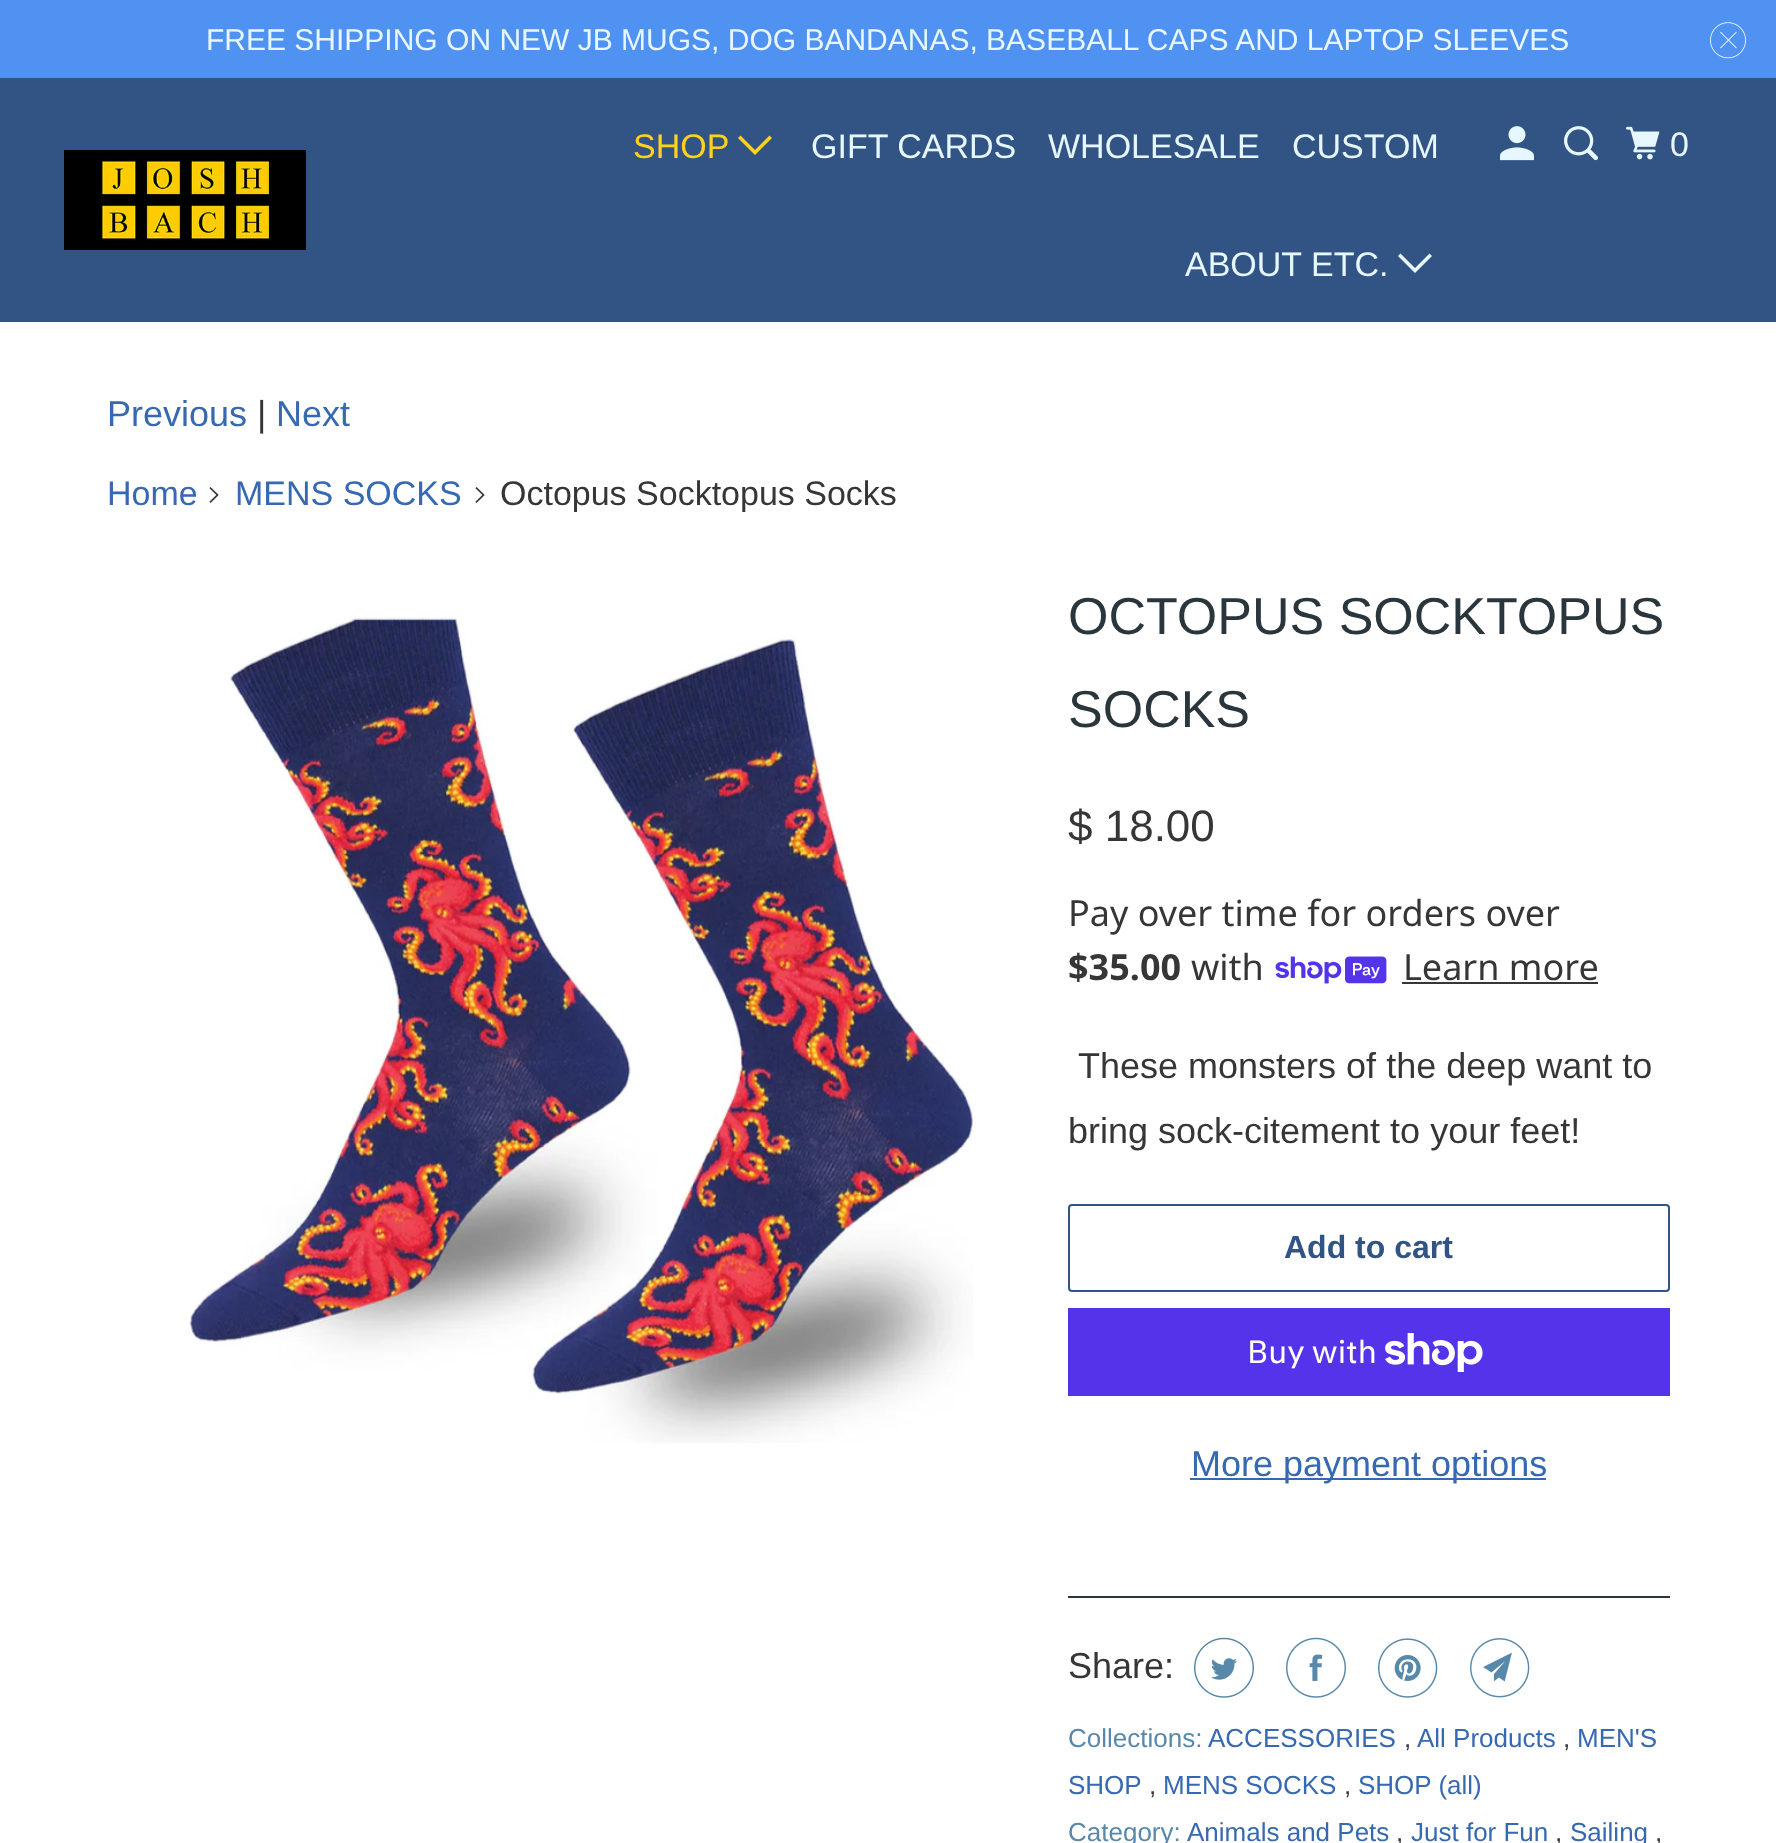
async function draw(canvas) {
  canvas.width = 1776
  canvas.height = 1843
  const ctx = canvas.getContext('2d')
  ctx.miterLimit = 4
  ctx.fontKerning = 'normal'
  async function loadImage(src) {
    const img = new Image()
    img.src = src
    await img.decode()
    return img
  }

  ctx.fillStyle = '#fff'
  ctx.fillRect(0, 0, 1776, 1843)
  ctx.fillStyle = '#5092f1'
  ctx.fillRect(0, 0, 1776, 78)
  ctx.font = '30px Liberation Sans'
  ctx.fillStyle = '#e7f7ff'
  ctx.fillText('FREE SHIPPING ON NEW JB MUGS, DOG BANDANAS, BASEBALL CAPS AND LAPTOP SLEEVES', 206, 50)
  ctx.drawImage(await loadImage('image0.png'), 1710, 22, 36, 37)
  ctx.fillStyle = '#325484'
  ctx.fillRect(0, 78, 1776, 244)
  ctx.drawImage(await loadImage('image1.png'), 64, 150, 242, 100)
  ctx.font = '34px Liberation Sans'
  ctx.fillStyle = '#ffd31b'
  ctx.fillText('SHOP', 633, 158)
  ctx.beginPath()
  ctx.moveTo(746.5, 146.5)
  ctx.lineTo(738, 138)
  ctx.lineTo(740.5, 135.5)
  ctx.lineTo(755, 150)
  ctx.lineTo(769.5, 135.5)
  ctx.lineTo(772, 138)
  ctx.lineTo(755, 155)
  ctx.closePath()
  ctx.fill()
  ctx.fillStyle = '#e7f7ff'
  ctx.fillText('GIFT CARDS', 811, 158)
  ctx.fillText('WHOLESALE', 1048, 158)
  ctx.fillText('CUSTOM', 1292, 158)
  ctx.fillText('ABOUT ETC.', 1185, 276)
  ctx.beginPath()
  ctx.moveTo(1406.5, 264.5)
  ctx.lineTo(1398, 256)
  ctx.lineTo(1400.5, 253.5)
  ctx.lineTo(1415, 268)
  ctx.lineTo(1429.5, 253.5)
  ctx.lineTo(1432, 256)
  ctx.lineTo(1415, 273)
  ctx.closePath()
  ctx.fill()
  ctx.drawImage(await loadImage('image2.png'), 1500, 126, 34, 35)
  ctx.drawImage(await loadImage('image3.png'), 1564, 126, 34, 35)
  ctx.drawImage(await loadImage('image4.png'), 1626, 126, 34, 34)
  ctx.fillText('0', 1670, 156)
  ctx.font = '36px Liberation Sans'
  ctx.fillStyle = '#3669b1'
  ctx.fillText('Previous', 107, 426)
  ctx.fillStyle = '#363636'
  ctx.fillText('|', 257, 426)
  ctx.fillStyle = '#3669b1'
  ctx.fillText('Next', 276, 426)
  ctx.font = '34px Liberation Sans'
  ctx.fillText('Home', 107, 505)
  ctx.drawImage(await loadImage('image5.png'), 209, 487, 10, 16)
  ctx.fillText('MENS SOCKS', 235, 505)
  ctx.drawImage(await loadImage('image5.png'), 475, 487, 10, 16)
  ctx.fillStyle = '#363636'
  ctx.fillText('Octopus Socktopus Socks', 500, 505)
  ctx.drawImage(await loadImage('image6.png'), 189, 617, 784, 826)
  ctx.font = '52px Liberation Sans'
  ctx.fillStyle = '#2a363b'
  ctx.fillText('OCTOPUS SOCKTOPUS', 1068, 634)
  ctx.fillText('SOCKS', 1068, 727)
  ctx.font = '44px Liberation Sans'
  ctx.fillStyle = '#363636'
  ctx.fillText('$ 18.00', 1068, 841)
  ctx.font = '36px Noto Sans'
  ctx.fillText('Pay over time for orders over', 1068, 926)
  ctx.font = 'bold 36px Noto Sans'
  ctx.fillText('$35.00', 1068, 980)
  ctx.font = '36px Noto Sans'
  ctx.fillText('with', 1191, 980)
  ctx.drawImage(await loadImage('image7.png'), 1275, 956, 112, 28)
  ctx.fillText('Learn more', 1403, 980)
  ctx.fillRect(1402, 982, 196, 2)
  ctx.font = '36px Liberation Sans'
  ctx.fillText('These monsters of the deep want to', 1078, 1078)
  ctx.fillText('bring sock-citement to your feet!', 1068, 1143)
  ctx.beginPath()
  ctx.roundRect(1069, 1205, 600, 86, 3)
  ctx.strokeStyle = '#325484'
  ctx.lineWidth = 2
  ctx.stroke()
  ctx.font = 'bold 32px Liberation Sans'
  ctx.fillStyle = '#325484'
  ctx.fillText('Add to cart', 1284, 1258)
  ctx.fillStyle = '#5433eb'
  ctx.fillRect(1068, 1308, 602, 88)
  ctx.font = '32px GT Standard'
  ctx.fillStyle = '#fff'
  ctx.fillText('Buy with', 1247, 1363)
  ctx.drawImage(await loadImage('image8.png'), 1385, 1333, 98, 39)
  ctx.fillStyle = '#3669b1'
  ctx.fillRect(1190, 1478, 356, 2)
  ctx.font = '36px Liberation Sans'
  ctx.fillText('More payment options', 1191, 1476)
  ctx.fillStyle = '#2a363b'
  ctx.fillRect(1068, 1596, 602, 2)
  ctx.fillStyle = '#363636'
  ctx.fillText('Share:', 1068, 1678)
  ctx.drawImage(await loadImage('image9.png'), 1194, 1637, 60, 61)
  ctx.drawImage(await loadImage('image10.png'), 1286, 1637, 60, 61)
  ctx.drawImage(await loadImage('image11.png'), 1378, 1638, 60, 60)
  ctx.drawImage(await loadImage('image12.png'), 1470, 1638, 60, 60)
  ctx.font = '26px Liberation Sans'
  ctx.fillStyle = '#5888aa'
  ctx.fillText('Collections:', 1068, 1747)
  ctx.fillStyle = '#3669b1'
  ctx.fillText('ACCESSORIES', 1208, 1747)
  ctx.fillStyle = '#363636'
  ctx.fillText(',', 1404, 1747)
  ctx.fillStyle = '#3669b1'
  ctx.fillText('All Products', 1417, 1747)
  ctx.fillStyle = '#363636'
  ctx.fillText(',', 1563, 1747)
  ctx.fillStyle = '#3669b1'
  ctx.fillText('MEN\'S', 1577, 1747)
  ctx.fillText('SHOP', 1068, 1794)
  ctx.fillStyle = '#363636'
  ctx.fillText(',', 1149, 1794)
  ctx.fillStyle = '#3669b1'
  ctx.fillText('MENS SOCKS', 1163, 1794)
  ctx.fillStyle = '#363636'
  ctx.fillText(',', 1344, 1794)
  ctx.fillStyle = '#3669b1'
  ctx.fillText('SHOP (all)', 1358, 1794)
  ctx.fillStyle = '#5888aa'
  ctx.fillText('Category:', 1068, 1841)
  ctx.fillStyle = '#3669b1'
  ctx.fillText('Animals and Pets', 1187, 1841)
  ctx.fillStyle = '#363636'
  ctx.fillText(',', 1396, 1841)
  ctx.fillStyle = '#3669b1'
  ctx.fillText('Just for Fun', 1411, 1841)
  ctx.fillStyle = '#363636'
  ctx.fillText(',', 1555, 1841)
  ctx.fillStyle = '#3669b1'
  ctx.fillText('Sailing', 1570, 1841)
  ctx.fillStyle = '#363636'
  ctx.fillText(',', 1655, 1841)
}

draw(document.querySelector('canvas'))
